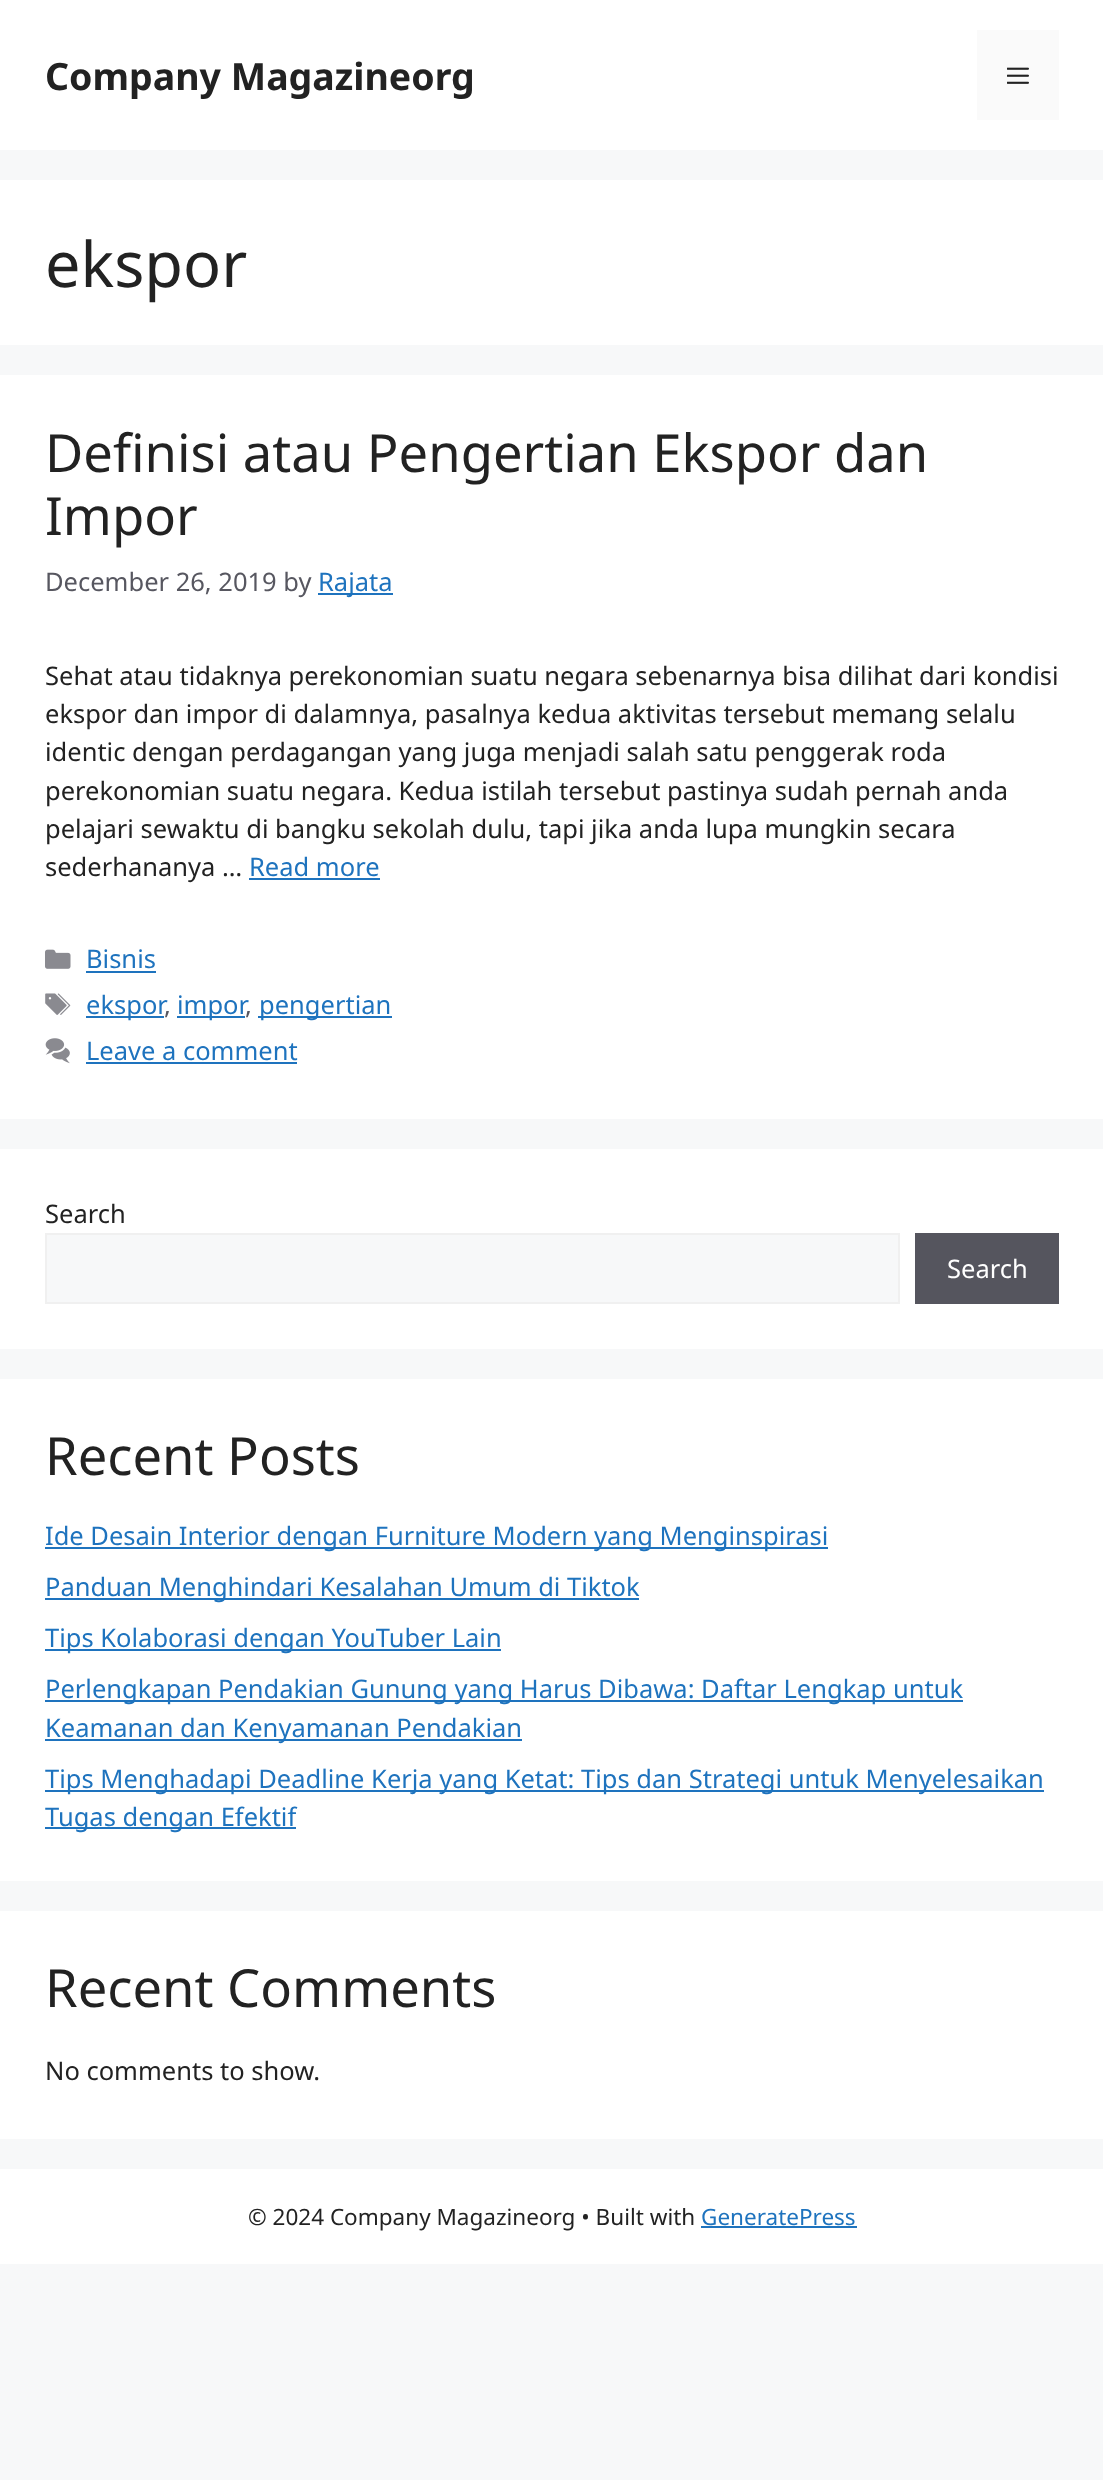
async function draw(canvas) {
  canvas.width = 1103
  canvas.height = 2480
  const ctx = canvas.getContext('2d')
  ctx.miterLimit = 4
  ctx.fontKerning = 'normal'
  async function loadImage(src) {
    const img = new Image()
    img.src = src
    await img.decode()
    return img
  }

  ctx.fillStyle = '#f7f8f9'
  ctx.fillRect(0, 0, 1103, 2480)
  ctx.fillStyle = '#fff'
  ctx.fillRect(0, 0, 1103, 150)
  ctx.font = 'bold 37.5px Noto Sans'
  ctx.fillStyle = '#222'
  ctx.fillText('Company Magazineorg', 45, 90)
  ctx.fillStyle = '#fafafa'
  ctx.fillRect(977, 30, 82, 90)
  ctx.drawImage(await loadImage('image0.png'), 1007, 67, 22, 17)
  ctx.fillStyle = '#fff'
  ctx.fillRect(0, 180, 1103, 165)
  ctx.font = '63px Noto Sans'
  ctx.fillStyle = '#222'
  ctx.fillText('ekspor', 45, 287)
  ctx.fillStyle = '#fff'
  ctx.fillRect(0, 375, 1103, 744)
  ctx.font = '52.5px Noto Sans'
  ctx.fillStyle = '#222'
  ctx.fillText('Definisi atau Pengertian Ekspor dan', 45, 472)
  ctx.fillText('Impor', 45, 535)
  ctx.font = '25.5px Noto Sans'
  ctx.fillStyle = '#575760'
  ctx.fillText('December 26, 2019 by', 45, 591)
  ctx.fillStyle = '#1e73be'
  ctx.fillRect(318, 593, 75, 2)
  ctx.fillText('Rajata', 318, 591)
  ctx.fillStyle = '#222'
  ctx.fillText('Sehat atau tidaknya perekonomian suatu negara sebenarnya bisa dilihat dari kondisi', 45, 685)
  ctx.fillText('ekspor dan impor di dalamnya, pasalnya kedua aktivitas tersebut memang selalu', 45, 723)
  ctx.fillText('identic dengan perdagangan yang juga menjadi salah satu penggerak roda', 45, 761)
  ctx.fillText('perekonomian suatu negara. Kedua istilah tersebut pastinya sudah pernah anda', 45, 800)
  ctx.fillText('pelajari sewaktu di bangku sekolah dulu, tapi jika anda lupa mungkin secara', 45, 838)
  ctx.fillText('sederhananya …', 45, 876)
  ctx.fillStyle = '#1e73be'
  ctx.fillText('Read more', 249, 876)
  ctx.fillRect(249, 878, 131, 2)
  ctx.drawImage(await loadImage('image1.png'), 45, 949, 26, 20)
  ctx.fillText('Bisnis', 86, 968)
  ctx.fillRect(86, 971, 70, 2)
  ctx.drawImage(await loadImage('image2.png'), 45, 993, 26, 22)
  ctx.fillRect(86, 1016, 78, 2)
  ctx.fillText('ekspor', 86, 1014)
  ctx.fillRect(177, 1016, 68, 2)
  ctx.fillText('impor', 177, 1014)
  ctx.fillRect(258, 1016, 134, 2)
  ctx.fillText('pengertian', 259, 1014)
  ctx.fillStyle = '#575760'
  ctx.fillText(',', 164, 1014)
  ctx.fillText(',', 245, 1014)
  ctx.drawImage(await loadImage('image3.png'), 45, 1038, 25, 26)
  ctx.fillStyle = '#1e73be'
  ctx.fillText('Leave a comment', 86, 1060)
  ctx.fillRect(86, 1062, 211, 2)
  ctx.fillStyle = '#fff'
  ctx.fillRect(0, 1149, 1103, 200)
  ctx.fillStyle = '#222'
  ctx.fillText('Search', 45, 1223)
  ctx.fillStyle = '#f7f8f9'
  ctx.beginPath()
  ctx.rect(46, 1234, 853, 69)
  ctx.fill()
  ctx.strokeStyle = '#f0f0f0'
  ctx.lineWidth = 2
  ctx.stroke()
  ctx.fillStyle = '#55555e'
  ctx.fillRect(915, 1233, 144, 71)
  ctx.fillStyle = '#fff'
  ctx.fillText('Search', 947, 1278)
  ctx.fillRect(0, 1379, 1103, 502)
  ctx.font = '52.5px Noto Sans'
  ctx.fillStyle = '#222'
  ctx.fillText('Recent Posts', 45, 1475)
  ctx.fillStyle = '#1e73be'
  ctx.fillRect(45, 1547, 783, 2)
  ctx.font = '25.5px Noto Sans'
  ctx.fillText('Ide Desain Interior dengan Furniture Modern yang Menginspirasi', 45, 1545)
  ctx.fillRect(45, 1598, 594, 2)
  ctx.fillText('Panduan Menghindari Kesalahan Umum di Tiktok', 45, 1596)
  ctx.fillRect(45, 1649, 456, 2)
  ctx.fillText('Tips Kolaborasi dengan YouTuber Lain', 45, 1647)
  ctx.fillRect(45, 1700, 918, 2)
  ctx.fillText('Perlengkapan Pendakian Gunung yang Harus Dibawa: Daftar Lengkap untuk', 45, 1698)
  ctx.fillRect(45, 1739, 477, 2)
  ctx.fillText('Keamanan dan Kenyamanan Pendakian', 45, 1737)
  ctx.fillRect(45, 1790, 999, 2)
  ctx.fillText('Tips Menghadapi Deadline Kerja yang Ketat: Tips dan Strategi untuk Menyelesaikan', 45, 1788)
  ctx.fillRect(45, 1827, 251, 2)
  ctx.fillText('Tugas dengan Efektif', 45, 1826)
  ctx.fillStyle = '#fff'
  ctx.fillRect(0, 1911, 1103, 228)
  ctx.font = '52.5px Noto Sans'
  ctx.fillStyle = '#222'
  ctx.fillText('Recent Comments', 45, 2007)
  ctx.font = '25.5px Noto Sans'
  ctx.fillText('No comments to show.', 45, 2080)
  ctx.fillStyle = '#fff'
  ctx.fillRect(0, 2169, 1103, 95)
  ctx.font = '22.5px Noto Sans'
  ctx.fillStyle = '#222'
  ctx.fillText('© 2024 Company Magazineorg • Built with', 248, 2225)
  ctx.fillStyle = '#1e73be'
  ctx.fillText('GeneratePress', 701, 2225)
  ctx.fillRect(701, 2226, 156, 2)
}

draw(document.querySelector('canvas'))
